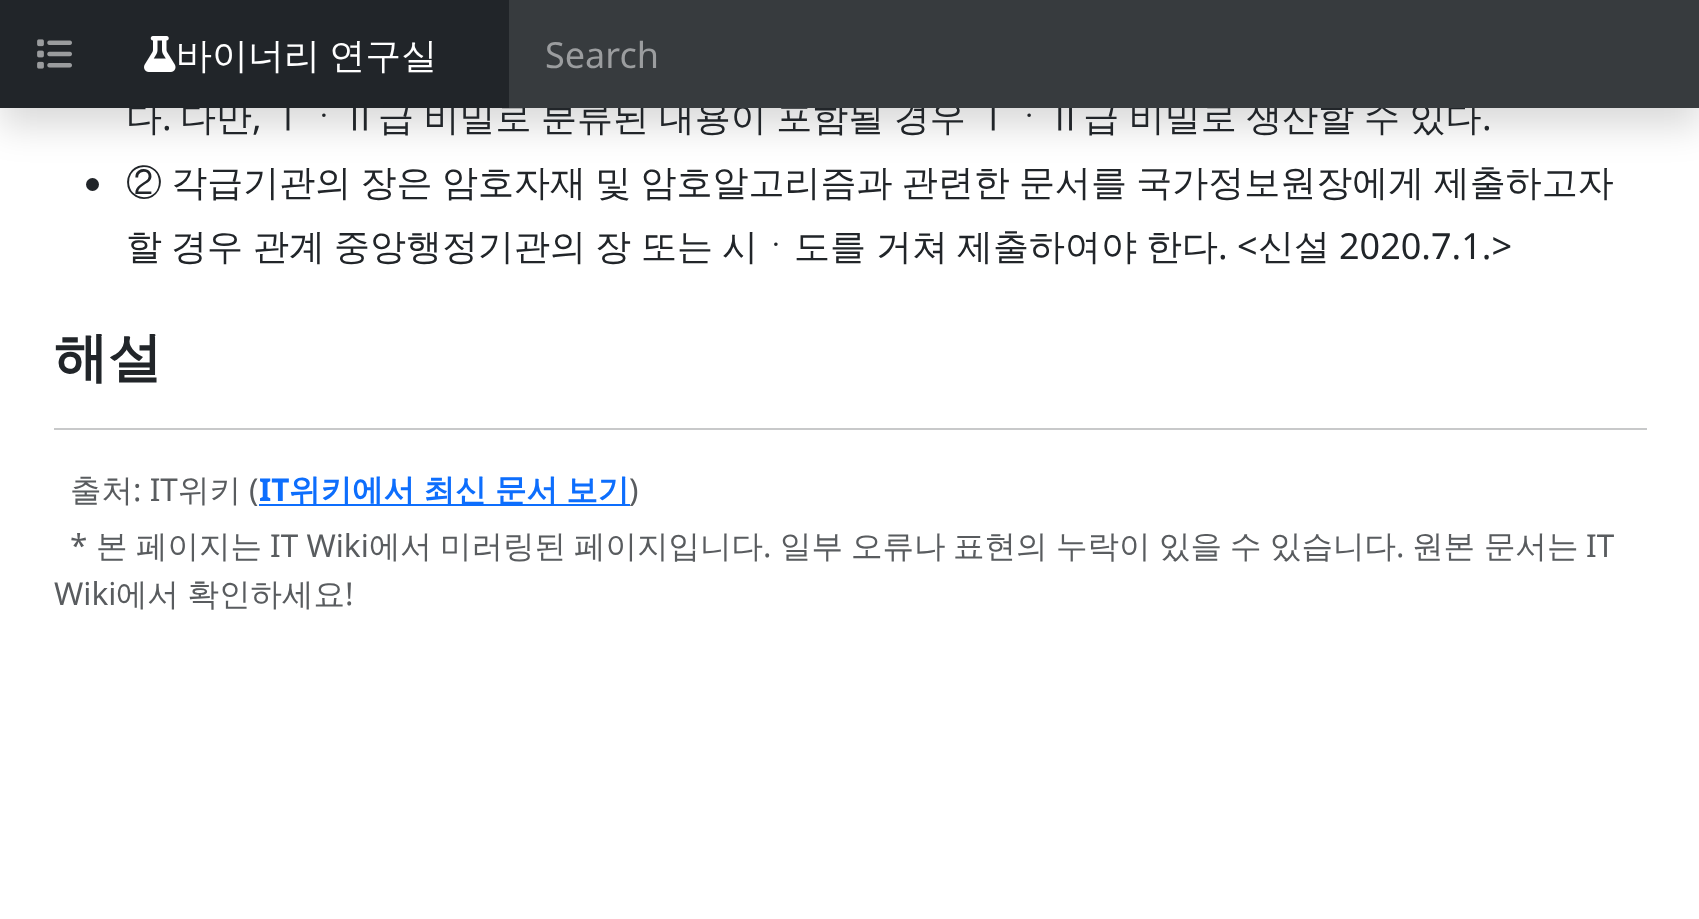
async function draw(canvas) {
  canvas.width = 1699
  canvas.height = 919
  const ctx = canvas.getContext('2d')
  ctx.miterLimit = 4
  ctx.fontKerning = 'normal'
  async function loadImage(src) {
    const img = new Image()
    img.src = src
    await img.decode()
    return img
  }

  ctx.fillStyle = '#fff'
  ctx.fillRect(0, 0, 1699, 919)
  ctx.fillStyle = '#212529'
  ctx.beginPath()
  ctx.arc(92.5, 184.5, 6.5, 0, 2 * Math.PI)
  ctx.fill()
  ctx.fillStyle = '#00000026'
  ctx.filter = 'blur(18px)'
  ctx.beginPath()
  ctx.rect(0, 18, 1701, 108)
  ctx.fill()
  ctx.filter = 'none'
  ctx.fillStyle = '#212529'
  ctx.fillRect(0, 0, 509, 108)
  ctx.drawImage(await loadImage('image0.png'), 37, 39, 35, 30)
  ctx.drawImage(await loadImage('image1.png'), 144, 36, 32, 36)
  ctx.wordSpacing = '-1.5px'
  ctx.font = '500 36px WenQuanYi Zen Hei'
  ctx.fillStyle = '#fff'
  ctx.fillText('바이너리 연구실', 176, 68)
  ctx.wordSpacing = '-1.25px'
  ctx.fillStyle = '#212529'
  ctx.fillText('ⅠㆍⅡ급 비밀로 분류된 내용이 포함될 경우 ⅠㆍⅡ급 비밀로 생산할 수 있다', 270, 130)
  ctx.fillStyle = '#373b3e'
  ctx.fillRect(509, 0, 1190, 108)
  ctx.wordSpacing = '0px'
  ctx.font = '36px Noto Sans'
  ctx.fillStyle = '#9b9d9f'
  ctx.fillText('Search', 545, 68)
  ctx.font = '500 36px WenQuanYi Zen Hei'
  ctx.fillStyle = '#212529'
  ctx.fillText('다', 126, 130)
  ctx.font = '36px Noto Sans'
  ctx.fillText('.', 162, 130)
  ctx.font = '500 36px WenQuanYi Zen Hei'
  ctx.fillText('다만', 180, 130)
  ctx.font = '36px Noto Sans'
  ctx.fillText(',', 252, 130)
  ctx.fillText('.', 1482, 130)
  ctx.wordSpacing = '-1.5px'
  ctx.font = '500 36px WenQuanYi Zen Hei'
  ctx.fillText('② 각급기관의 장은 암호자재 및 암호알고리즘과 관련한 문서를 국가정보원장에게 제출하고자', 126, 195)
  ctx.wordSpacing = '0px'
  ctx.fillText('할', 126, 259)
  ctx.fillText('경우', 171, 259)
  ctx.fillText('관계', 253, 259)
  ctx.fillText('중앙행정기관의', 334, 259)
  ctx.fillText('장', 595, 259)
  ctx.fillText('또는', 641, 259)
  ctx.fillText('시ㆍ도를', 722, 259)
  ctx.fillText('거쳐', 876, 259)
  ctx.fillText('제출하여야', 957, 259)
  ctx.fillText('한다', 1146, 259)
  ctx.font = '36px Noto Sans'
  ctx.fillText('. <', 1218, 259)
  ctx.font = '500 36px WenQuanYi Zen Hei'
  ctx.fillText('신설', 1258, 259)
  ctx.font = '36px Noto Sans'
  ctx.fillText('2020.7.1.>', 1339, 259)
  ctx.font = 'bold 54px WenQuanYi Zen Hei'
  ctx.fillText('해설', 54, 376)
  ctx.fillStyle = '#c8c9ca'
  ctx.fillRect(54, 428, 1593, 2)
  ctx.font = '500 31.5px WenQuanYi Zen Hei'
  ctx.fillStyle = '#595c5f'
  ctx.fillText('출처', 70, 501)
  ctx.font = '31.5px Noto Sans'
  ctx.fillText(': IT', 133, 501)
  ctx.font = '500 31.5px WenQuanYi Zen Hei'
  ctx.fillText('위키', 178, 501)
  ctx.font = '31.5px Noto Sans'
  ctx.fillText('(', 249, 501)
  ctx.font = 'bold 31.5px Noto Sans'
  ctx.fillStyle = '#0d6efd'
  ctx.fillText('IT', 259, 501)
  ctx.fillRect(259, 504, 371, 2)
  ctx.wordSpacing = '-1px'
  ctx.font = 'bold 31.5px WenQuanYi Zen Hei'
  ctx.fillText('위키에서 최신 문서 보기', 289, 501)
  ctx.wordSpacing = '0px'
  ctx.font = '31.5px Noto Sans'
  ctx.fillStyle = '#595c5f'
  ctx.fillText(')', 629, 501)
  ctx.fillText('*', 70, 557)
  ctx.font = '500 31.5px WenQuanYi Zen Hei'
  ctx.fillText('본', 96, 557)
  ctx.fillText('페이지는', 136, 557)
  ctx.font = '31.5px Noto Sans'
  ctx.fillText('IT Wiki', 270, 557)
  ctx.font = '500 31.5px WenQuanYi Zen Hei'
  ctx.fillText('에서', 369, 557)
  ctx.fillText('미러링된', 440, 557)
  ctx.fillText('페이지입니다', 574, 557)
  ctx.font = '31.5px Noto Sans'
  ctx.fillText('.', 763, 557)
  ctx.font = '500 31.5px WenQuanYi Zen Hei'
  ctx.fillText('일부', 780, 557)
  ctx.fillText('오류나', 851, 557)
  ctx.fillText('표현의', 953, 557)
  ctx.fillText('누락이', 1056, 557)
  ctx.fillText('있을', 1159, 557)
  ctx.fillText('수', 1230, 557)
  ctx.fillText('있습니다', 1270, 557)
  ctx.font = '31.5px Noto Sans'
  ctx.fillText('.', 1396, 557)
  ctx.font = '500 31.5px WenQuanYi Zen Hei'
  ctx.fillText('원본', 1412, 557)
  ctx.fillText('문서는', 1484, 557)
  ctx.font = '31.5px Noto Sans'
  ctx.fillText('IT', 1586, 557)
  ctx.fillText('Wiki', 54, 605)
  ctx.wordSpacing = '-1px'
  ctx.font = '500 31.5px WenQuanYi Zen Hei'
  ctx.fillText('에서 확인하세요', 116, 605)
  ctx.wordSpacing = '0px'
  ctx.font = '31.5px Noto Sans'
  ctx.fillText('!', 345, 605)
}

draw(document.querySelector('canvas'))
